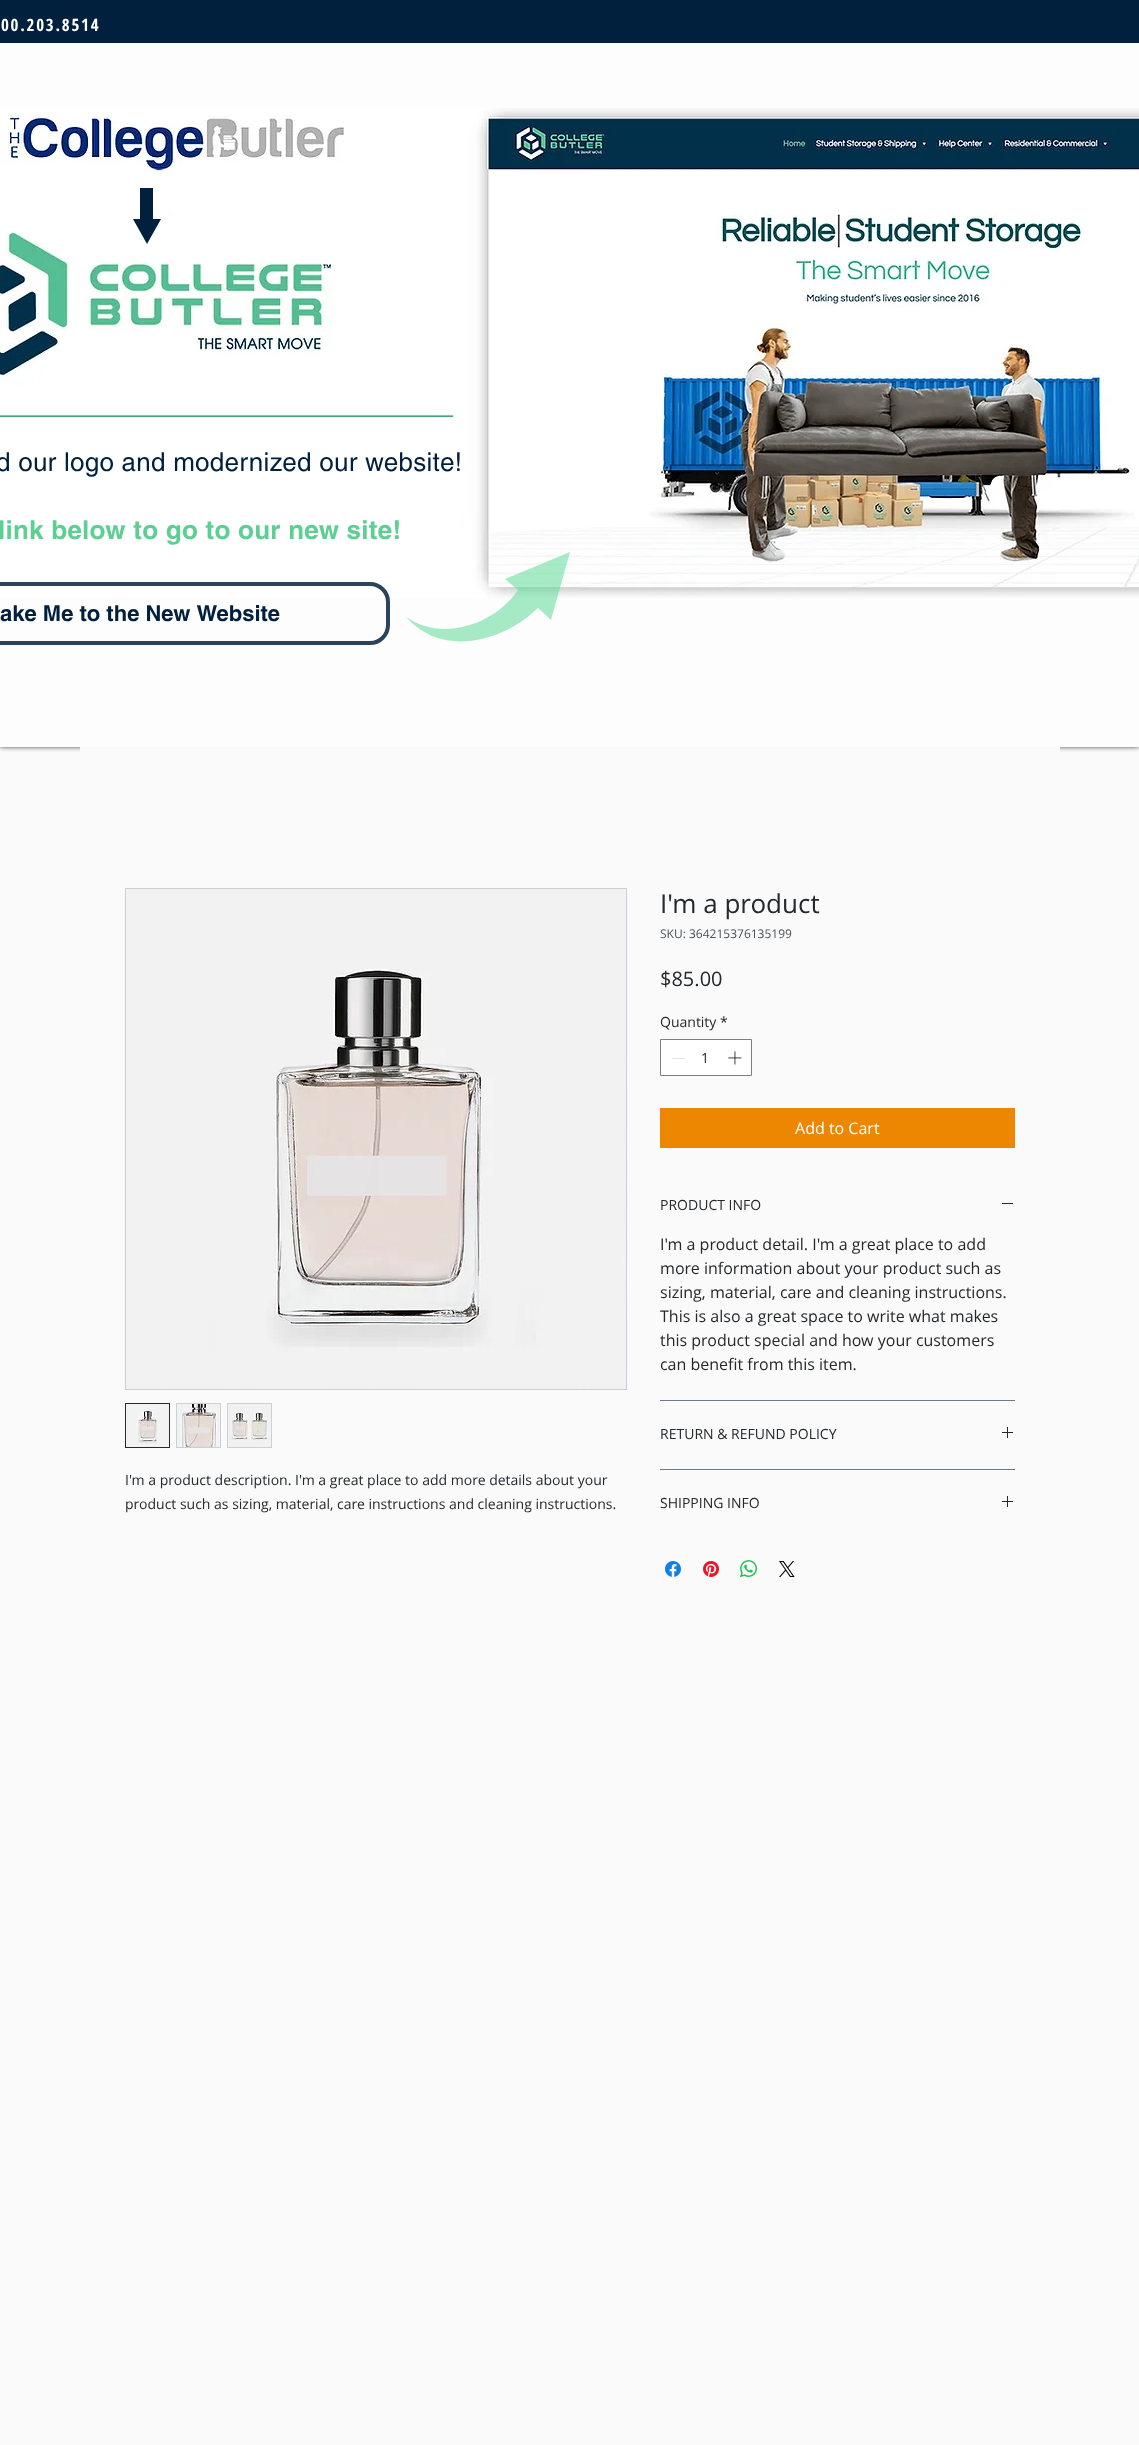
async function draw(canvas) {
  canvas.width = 1139
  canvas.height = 2445
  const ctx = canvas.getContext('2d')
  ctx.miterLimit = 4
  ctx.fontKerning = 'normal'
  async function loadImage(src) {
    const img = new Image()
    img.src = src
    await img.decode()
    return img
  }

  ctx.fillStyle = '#fafafa'
  ctx.fillRect(0, 0, 1139, 2445)
  ctx.fillStyle = '#000000b3'
  ctx.filter = 'blur(2.5px)'
  ctx.beginPath()
  ctx.rect(0, 0, 1139, 747)
  ctx.fill()
  ctx.filter = 'none'
  ctx.fillStyle = '#fdfdfd'
  ctx.fillRect(0, 43, 1139, 704)
  ctx.fillStyle = '#01203e'
  ctx.fillRect(0, 0, 1139, 43)
  ctx.letterSpacing = '1.75px'
  ctx.font = 'bold 17px Open Sans Condensed'
  ctx.fillStyle = '#fff'
  ctx.fillText('00.203.8514', 1, 31)
  ctx.drawImage(await loadImage('image0.png'), 0, 108, 1139, 490)
  ctx.fillRect(100, 204, 68, 23)
  ctx.fillStyle = '#01203e'
  ctx.beginPath()
  ctx.moveTo(147, 244)
  ctx.lineTo(133, 219)
  ctx.lineTo(140, 219)
  ctx.lineTo(140, 188)
  ctx.lineTo(153, 188)
  ctx.lineTo(153, 219)
  ctx.lineTo(161, 219)
  ctx.closePath()
  ctx.fill()
  ctx.fillStyle = '#fff'
  ctx.fillRect(0, 459, 460, 139)
  ctx.letterSpacing = '0.25px'
  ctx.font = '26px helvetica'
  ctx.fillStyle = '#01203e'
  ctx.fillText('d our logo and modernized our website!', -4, 471)
  ctx.font = 'bold 26px helvetica'
  ctx.fillStyle = '#5ecf93'
  ctx.fillText('link below to go to our new site!', -2, 539)
  ctx.beginPath()
  ctx.roundRect(-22, 584, 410, 59, 18)
  ctx.strokeStyle = '#2a445d'
  ctx.lineWidth = 4
  ctx.stroke()
  ctx.letterSpacing = '0px'
  ctx.font = 'bold 22px helvetica'
  ctx.fillStyle = '#01203e'
  ctx.fillText('ake Me to the New Website', 0, 621)
  ctx.fillStyle = '#65dc9d94'
  ctx.beginPath()
  ctx.moveTo(406, 617)
  ctx.bezierCurveTo(442, 642, 494, 625, 518, 590)
  ctx.lineTo(505, 579)
  ctx.lineTo(570, 552)
  ctx.lineTo(551, 620)
  ctx.lineTo(538, 608)
  ctx.bezierCurveTo(503, 642, 442, 658, 406, 617)
  ctx.closePath()
  ctx.fill()
  ctx.fillStyle = '#fafafa'
  ctx.fillRect(80, 747, 980, 5)
  ctx.strokeStyle = '#c9d0d7'
  ctx.lineWidth = 1
  ctx.strokeRect(125.5, 888.5, 501, 501)
  ctx.drawImage(await loadImage('image1.png'), 126, 889, 500, 500)
  ctx.strokeStyle = '#24292d'
  ctx.strokeRect(125.5, 1403.5, 44, 44)
  ctx.drawImage(await loadImage('image2.png'), 126, 1404, 43, 43)
  ctx.strokeStyle = '#c9d0d7'
  ctx.strokeRect(176.5, 1403.5, 44, 44)
  ctx.drawImage(await loadImage('image3.png'), 177, 1404, 43, 43)
  ctx.strokeRect(227.5, 1403.5, 44, 44)
  ctx.drawImage(await loadImage('image4.png'), 228, 1404, 43, 43)
  ctx.font = '14px Open Sans'
  ctx.fillStyle = '#24292d'
  ctx.fillText('I\'m a product description. I\'m a great place to add more details about your', 125, 1485)
  ctx.fillText('product such as sizing, material, care instructions and cleaning instructions.', 125, 1509)
  ctx.font = '26px Open Sans'
  ctx.fillText('I\'m a product', 660, 913)
  ctx.font = '12px Open Sans'
  ctx.fillStyle = '#48515a'
  ctx.fillText('SKU: 364215376135199', 660, 938)
  ctx.font = '20px Open Sans'
  ctx.fillStyle = '#24292d'
  ctx.fillText('$85.00', 660, 986)
  ctx.font = '14px Open Sans'
  ctx.fillText('Quantity', 660, 1027)
  ctx.fillText('*', 720, 1027)
  ctx.fillStyle = '#fff'
  ctx.beginPath()
  ctx.rect(660.5, 1039.5, 91, 36)
  ctx.fill()
  ctx.strokeStyle = '#7c7f81'
  ctx.stroke()
  ctx.fillStyle = '#e3e3e3'
  ctx.fillRect(672, 1058, 13, 1)
  ctx.fillStyle = '#24292d'
  ctx.fillText('1', 701, 1063)
  ctx.drawImage(await loadImage('image5.png'), 728, 1051, 14, 14)
  ctx.fillStyle = '#ed8600'
  ctx.fillRect(660, 1108, 355, 40)
  ctx.font = '16px Open Sans'
  ctx.fillStyle = '#fff'
  ctx.fillText('Add to Cart', 795, 1134)
  ctx.fillStyle = '#6c7a87'
  ctx.fillRect(660, 1400, 355, 1)
  ctx.font = '14px Open Sans'
  ctx.fillStyle = '#24292d'
  ctx.fillText('PRODUCT INFO', 660, 1210)
  ctx.fillRect(1002, 1203, 11, 1)
  ctx.font = '16px Open Sans'
  ctx.fillText('I\'m a product detail. I\'m a great place to add', 660, 1250)
  ctx.fillText('more information about your product such as', 660, 1274)
  ctx.fillText('sizing, material, care and cleaning instructions.', 660, 1298)
  ctx.fillText('This is also a great space to write what makes', 660, 1322)
  ctx.fillText('this product special and how your customers', 660, 1346)
  ctx.fillText('can benefit from this item.', 660, 1370)
  ctx.fillStyle = '#6c7a87'
  ctx.fillRect(660, 1469, 355, 1)
  ctx.font = '14px Open Sans'
  ctx.fillStyle = '#24292d'
  ctx.fillText('RETURN & REFUND POLICY', 660, 1439)
  ctx.drawImage(await loadImage('image6.png'), 1002, 1427, 11, 11)
  ctx.fillText('SHIPPING INFO', 660, 1508)
  ctx.drawImage(await loadImage('image6.png'), 1002, 1496, 11, 11)
  ctx.drawImage(await loadImage('image7.png'), 665, 1561, 16, 16)
  ctx.drawImage(await loadImage('image8.png'), 703, 1561, 16, 16)
  ctx.drawImage(await loadImage('image9.png'), 740, 1560, 17, 17)
  ctx.drawImage(await loadImage('image10.png'), 779, 1561, 16, 16)
}

draw(document.querySelector('canvas'))
